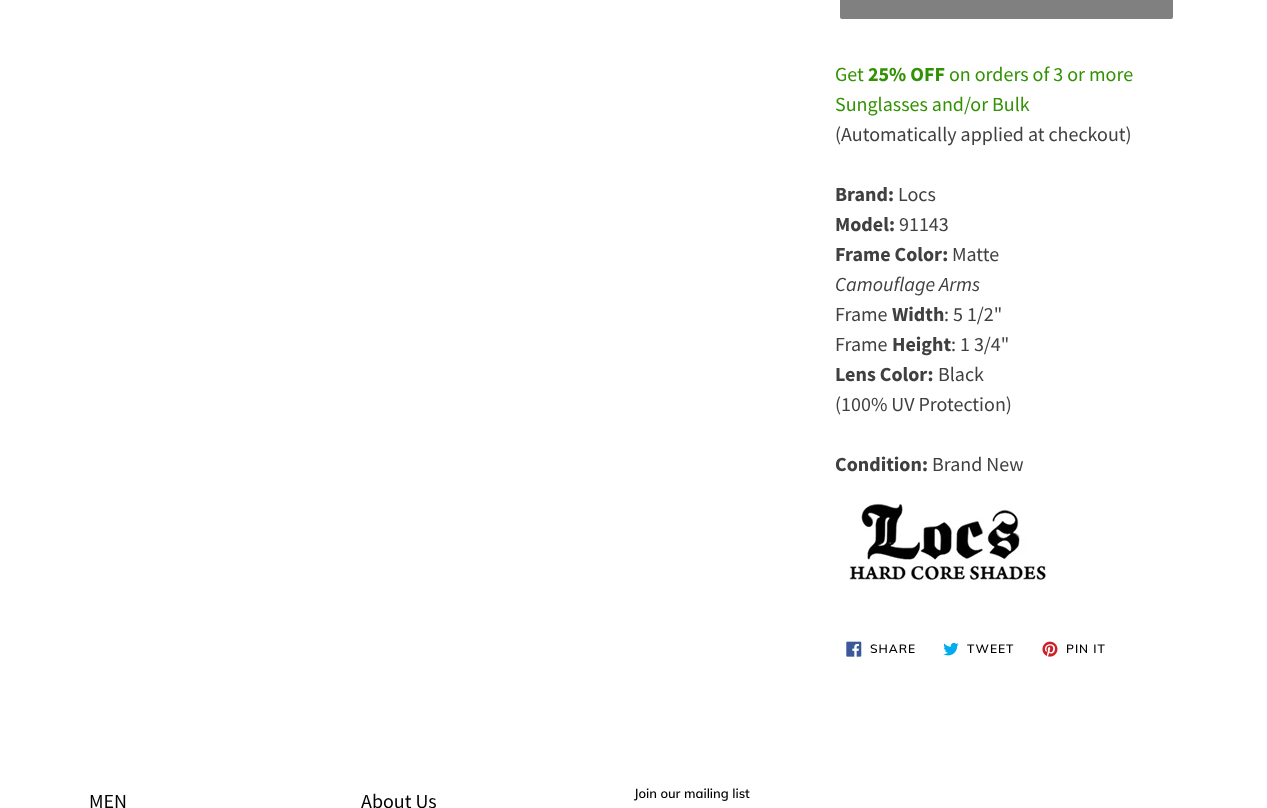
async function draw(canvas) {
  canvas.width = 1267
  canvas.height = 808
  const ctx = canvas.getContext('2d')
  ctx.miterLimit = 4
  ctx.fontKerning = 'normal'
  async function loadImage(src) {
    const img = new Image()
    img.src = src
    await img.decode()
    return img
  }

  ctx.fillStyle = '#fff'
  ctx.fillRect(0, 0, 1267, 808)
  ctx.fillStyle = '#808080'
  ctx.beginPath()
  ctx.roundRect(840, -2, 333, 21, 2)
  ctx.fill()
  ctx.font = '20px Source Sans Pro'
  ctx.fillStyle = '#339204'
  ctx.fillText('Get', 835, 81)
  ctx.font = 'bold 20px Source Sans Pro'
  ctx.fillText('25% OFF', 868, 81)
  ctx.font = '20px Source Sans Pro'
  ctx.fillText('on orders of 3 or more', 949, 81)
  ctx.fillText('Sunglasses and/or Bulk', 835, 111)
  ctx.fillStyle = '#404040'
  ctx.fillText('(Automatically applied at checkout)', 835, 141)
  ctx.font = 'bold 20px Source Sans Pro'
  ctx.fillText('Brand:', 835, 201)
  ctx.font = '20px Source Sans Pro'
  ctx.fillText('Locs', 898, 201)
  ctx.font = 'bold 20px Source Sans Pro'
  ctx.fillText('Model:', 835, 231)
  ctx.font = '20px Source Sans Pro'
  ctx.fillText('91143', 899, 231)
  ctx.font = 'bold 20px Source Sans Pro'
  ctx.fillText('Frame Color:', 835, 261)
  ctx.font = '20px Source Sans Pro'
  ctx.fillText('Matte', 952, 261)
  ctx.font = 'italic 20px Source Sans Pro'
  ctx.fillText('Camouflage Arms', 835, 291)
  ctx.font = '20px Source Sans Pro'
  ctx.fillText('Frame', 835, 321)
  ctx.font = 'bold 20px Source Sans Pro'
  ctx.fillText('Width', 892, 321)
  ctx.font = '20px Source Sans Pro'
  ctx.fillText(': 5 1/2"', 944, 321)
  ctx.fillText('Frame', 835, 351)
  ctx.font = 'bold 20px Source Sans Pro'
  ctx.fillText('Height', 892, 351)
  ctx.font = '20px Source Sans Pro'
  ctx.fillText(': 1 3/4"', 951, 351)
  ctx.font = 'bold 20px Source Sans Pro'
  ctx.fillText('Lens Color:', 835, 381)
  ctx.font = '20px Source Sans Pro'
  ctx.fillText('Black', 938, 381)
  ctx.fillText('(100% UV Protection)', 835, 411)
  ctx.font = 'bold 20px Source Sans Pro'
  ctx.fillText('Condition:', 835, 471)
  ctx.font = '20px Source Sans Pro'
  ctx.fillText('Brand New', 932, 471)
  ctx.drawImage(await loadImage('image0.png'), 847, 503, 199, 80)
  ctx.drawImage(await loadImage('image1.png'), 846, 641, 16, 16)
  ctx.letterSpacing = '1px'
  ctx.font = '600 12px Muli'
  ctx.fillStyle = '#000'
  ctx.fillText('SHARE', 870, 653)
  ctx.drawImage(await loadImage('image2.png'), 943, 642, 16, 14)
  ctx.fillText('TWEET', 967, 653)
  ctx.drawImage(await loadImage('image3.png'), 1042, 641, 16, 16)
  ctx.fillText('PIN IT', 1066, 653)
  ctx.letterSpacing = '0px'
  ctx.font = '20px Source Sans Pro'
  ctx.fillText('MEN', 89, 808)
  ctx.fillText('About Us', 361, 808)
  ctx.font = '600 13px Muli'
  ctx.fillText('Join our mailing list', 634, 798)
}

draw(document.querySelector('canvas'))
